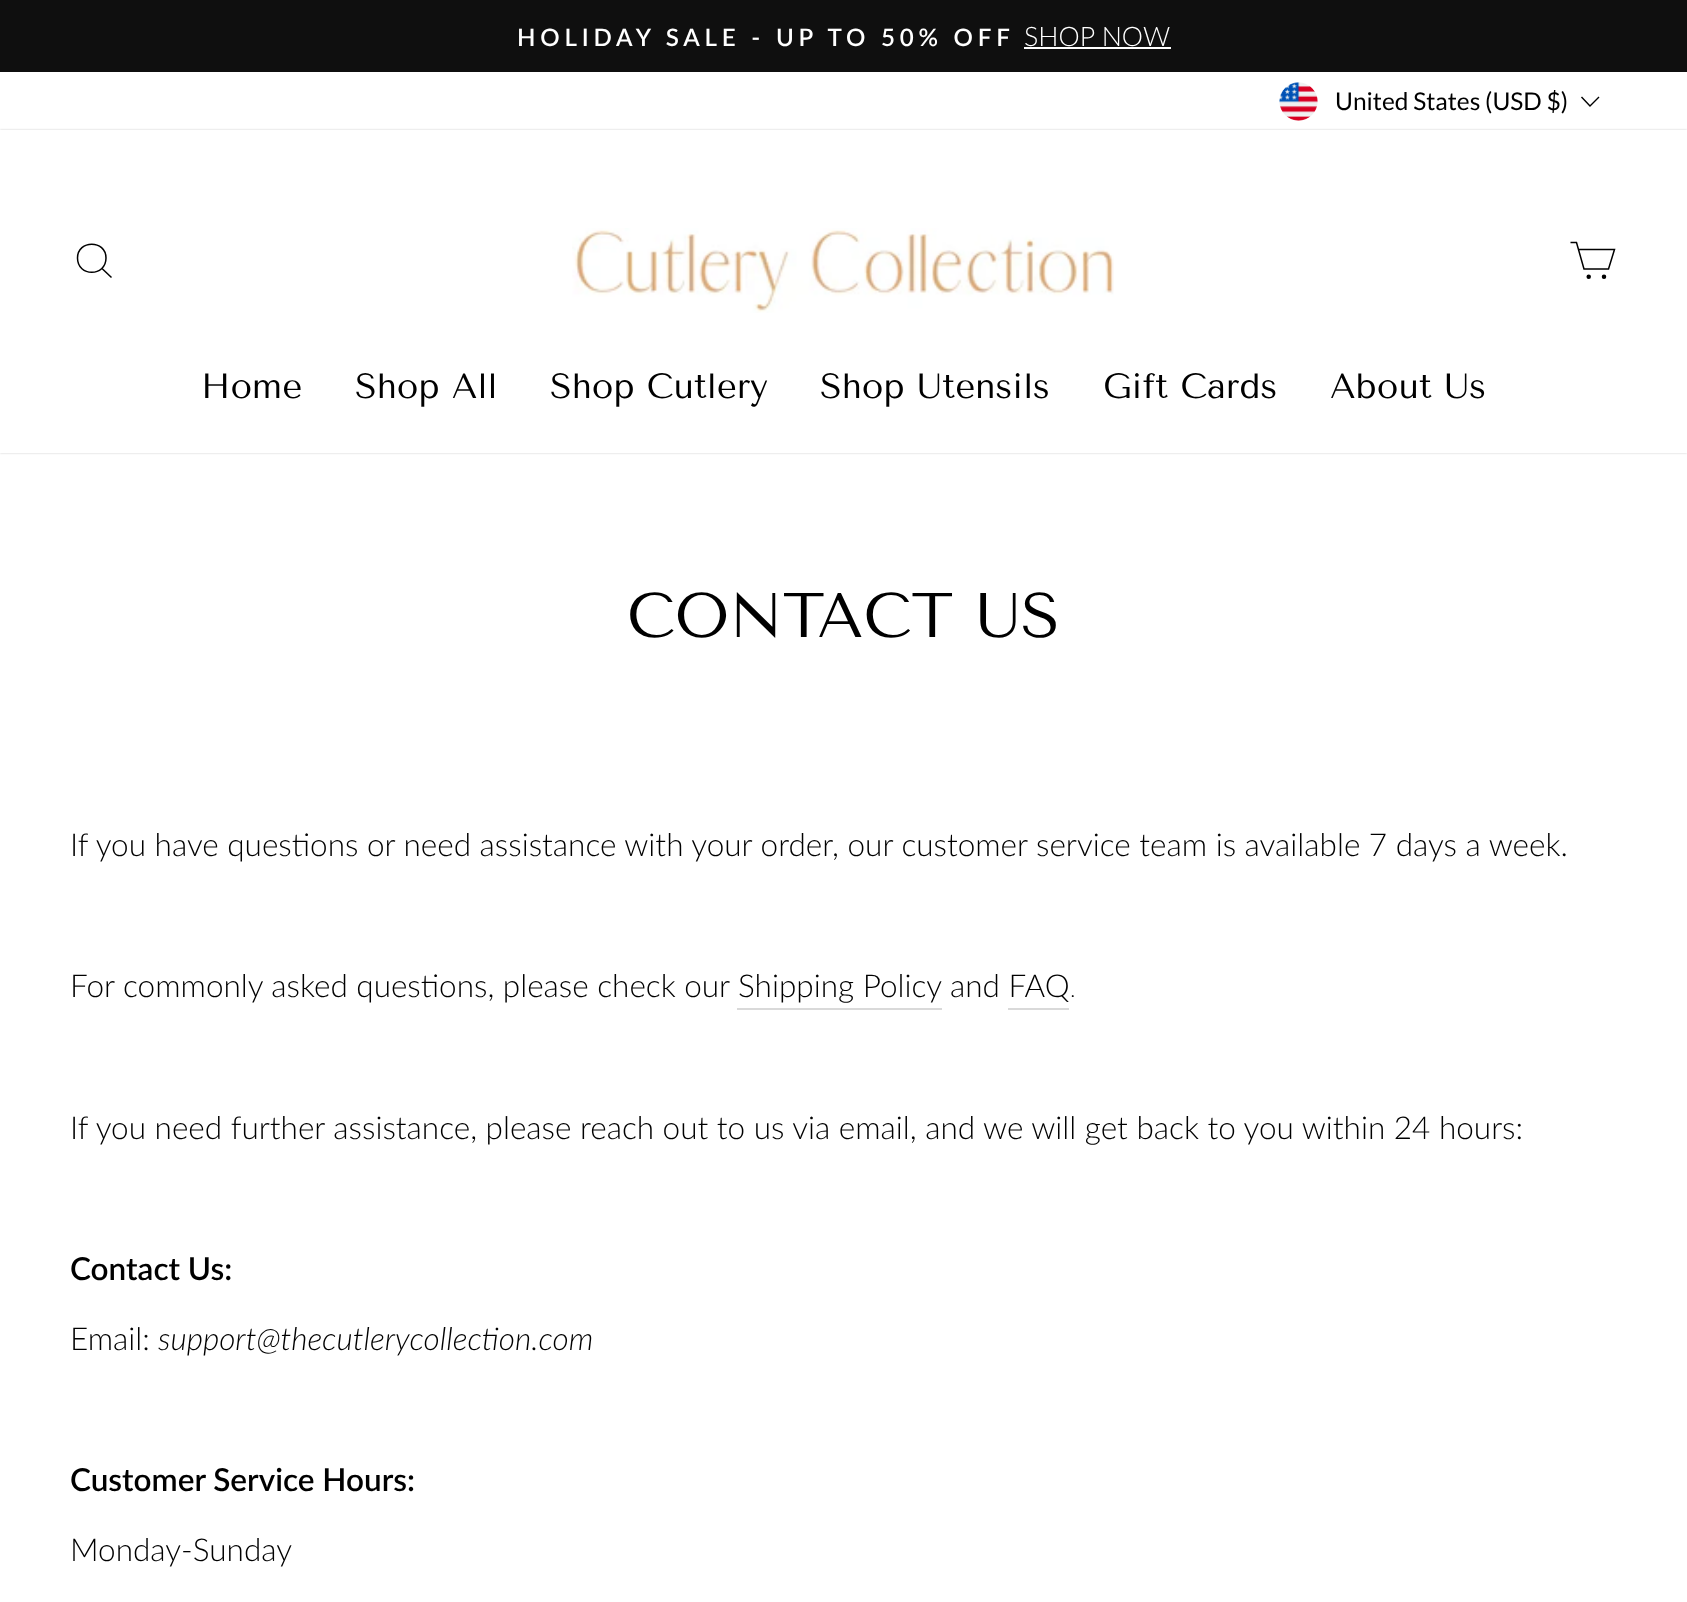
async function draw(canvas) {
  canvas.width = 1687
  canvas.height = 1602
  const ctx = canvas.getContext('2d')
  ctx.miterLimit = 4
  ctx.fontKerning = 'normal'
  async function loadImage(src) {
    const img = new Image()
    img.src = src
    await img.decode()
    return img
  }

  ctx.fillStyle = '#fff'
  ctx.fillRect(0, 0, 1687, 1602)
  ctx.fillStyle = '#0f0f0f'
  ctx.fillRect(0, 0, 1687, 72)
  ctx.letterSpacing = '4.8px'
  ctx.font = '600 24.1px Lato'
  ctx.fillStyle = '#fff'
  ctx.fillText('HOLIDAY SALE - UP TO 50% OFF', 517, 46)
  ctx.letterSpacing = '0px'
  ctx.font = '300 26.75px Lato'
  ctx.fillText('SHOP NOW', 1024, 46)
  ctx.fillRect(1024, 47, 147, 2)
  ctx.drawImage(await loadImage('image0.png'), 1279, 82, 39, 39)
  ctx.font = '24.5px Lato'
  ctx.fillStyle = '#000'
  ctx.fillText('United States (USD $)', 1335, 110)
  ctx.beginPath()
  ctx.moveTo(1581.5, 97)
  ctx.lineTo(1590, 106)
  ctx.lineTo(1599, 97)
  ctx.strokeStyle = '#000'
  ctx.lineWidth = 1.4
  ctx.stroke()
  ctx.save()
  ctx.beginPath()
  ctx.moveTo(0, 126)
  ctx.lineTo(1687, 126)
  ctx.lineTo(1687, 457)
  ctx.lineTo(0, 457)
  ctx.closePath()
  ctx.moveTo(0, 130)
  ctx.lineTo(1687, 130)
  ctx.lineTo(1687, 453)
  ctx.lineTo(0, 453)
  ctx.closePath()
  ctx.clip('evenodd')
  ctx.fillStyle = '#00000033'
  ctx.filter = 'blur(1px)'
  ctx.beginPath()
  ctx.rect(0, 130, 1687, 323)
  ctx.fill()
  ctx.filter = 'none'
  ctx.restore()
  ctx.beginPath()
  ctx.moveTo(106, 258)
  ctx.bezierCurveTo(106, 277, 77.5, 277, 77.5, 258)
  ctx.bezierCurveTo(77.5, 239.5, 106, 239.5, 106, 258)
  ctx.closePath()
  ctx.moveTo(111.5, 277.5)
  ctx.lineTo(102, 268.5)
  ctx.lineWidth = 1.5
  ctx.stroke()
  ctx.drawImage(await loadImage('image1.png'), 572, 228, 542, 85)
  ctx.beginPath()
  ctx.moveTo(1578.5, 249.5)
  ctx.lineTo(1614.5, 249.5)
  ctx.lineTo(1608.5, 269)
  ctx.lineTo(1584, 269)
  ctx.lineTo(1576.5, 242.5)
  ctx.lineTo(1570.5, 242.5)
  ctx.stroke()
  ctx.beginPath()
  ctx.arc(1588.7, 276.8, 1.5, 0, 2 * Math.PI)
  ctx.fill()
  ctx.stroke()
  ctx.beginPath()
  ctx.arc(1604, 276.8, 1.5, 0, 2 * Math.PI)
  ctx.fill()
  ctx.stroke()
  ctx.font = '35px Tenor Sans'
  ctx.fillText('Home', 201, 398)
  ctx.fillText('Shop All', 355, 398)
  ctx.fillText('Shop Cutlery', 550, 398)
  ctx.fillText('Shop Utensils', 820, 398)
  ctx.fillText('Gift Cards', 1103, 398)
  ctx.fillText('About Us', 1330, 398)
  ctx.font = '63px Tenor Sans'
  ctx.fillText('CONTACT US', 627, 637)
  ctx.font = '300 31.5px Lato'
  ctx.fillText('If you have questions or need assistance with your order, our customer service team is available 7 days a week.', 70, 856)
  ctx.fillText('For commonly asked questions, please check our Shipping Policy', 70, 997)
  ctx.fillText('and FAQ', 950, 997)
  ctx.font = '300 24.5px Roboto'
  ctx.fillText('.', 1070, 997)
  ctx.fillStyle = '#d9d9d9'
  ctx.fillRect(737, 1008, 205, 2)
  ctx.fillRect(1008, 1008, 61, 2)
  ctx.font = '300 31.5px Lato'
  ctx.fillStyle = '#000'
  ctx.fillText('If you need further assistance, please reach out to us via email, and we will get back to you within 24 hours:', 70, 1139)
  ctx.font = '600 31.5px Lato'
  ctx.fillText('Contact Us:', 70, 1280)
  ctx.font = '300 31.5px Lato'
  ctx.fillText('Email:', 70, 1350)
  ctx.font = 'italic 300 31.5px Lato'
  ctx.fillText('support@thecutlerycollection.com', 158, 1350)
  ctx.font = '600 31.5px Lato'
  ctx.fillText('Customer Service Hours:', 70, 1491)
  ctx.font = '300 31.5px Lato'
  ctx.fillText('Monday-Sunday', 70, 1561)
}

draw(document.querySelector('canvas'))
